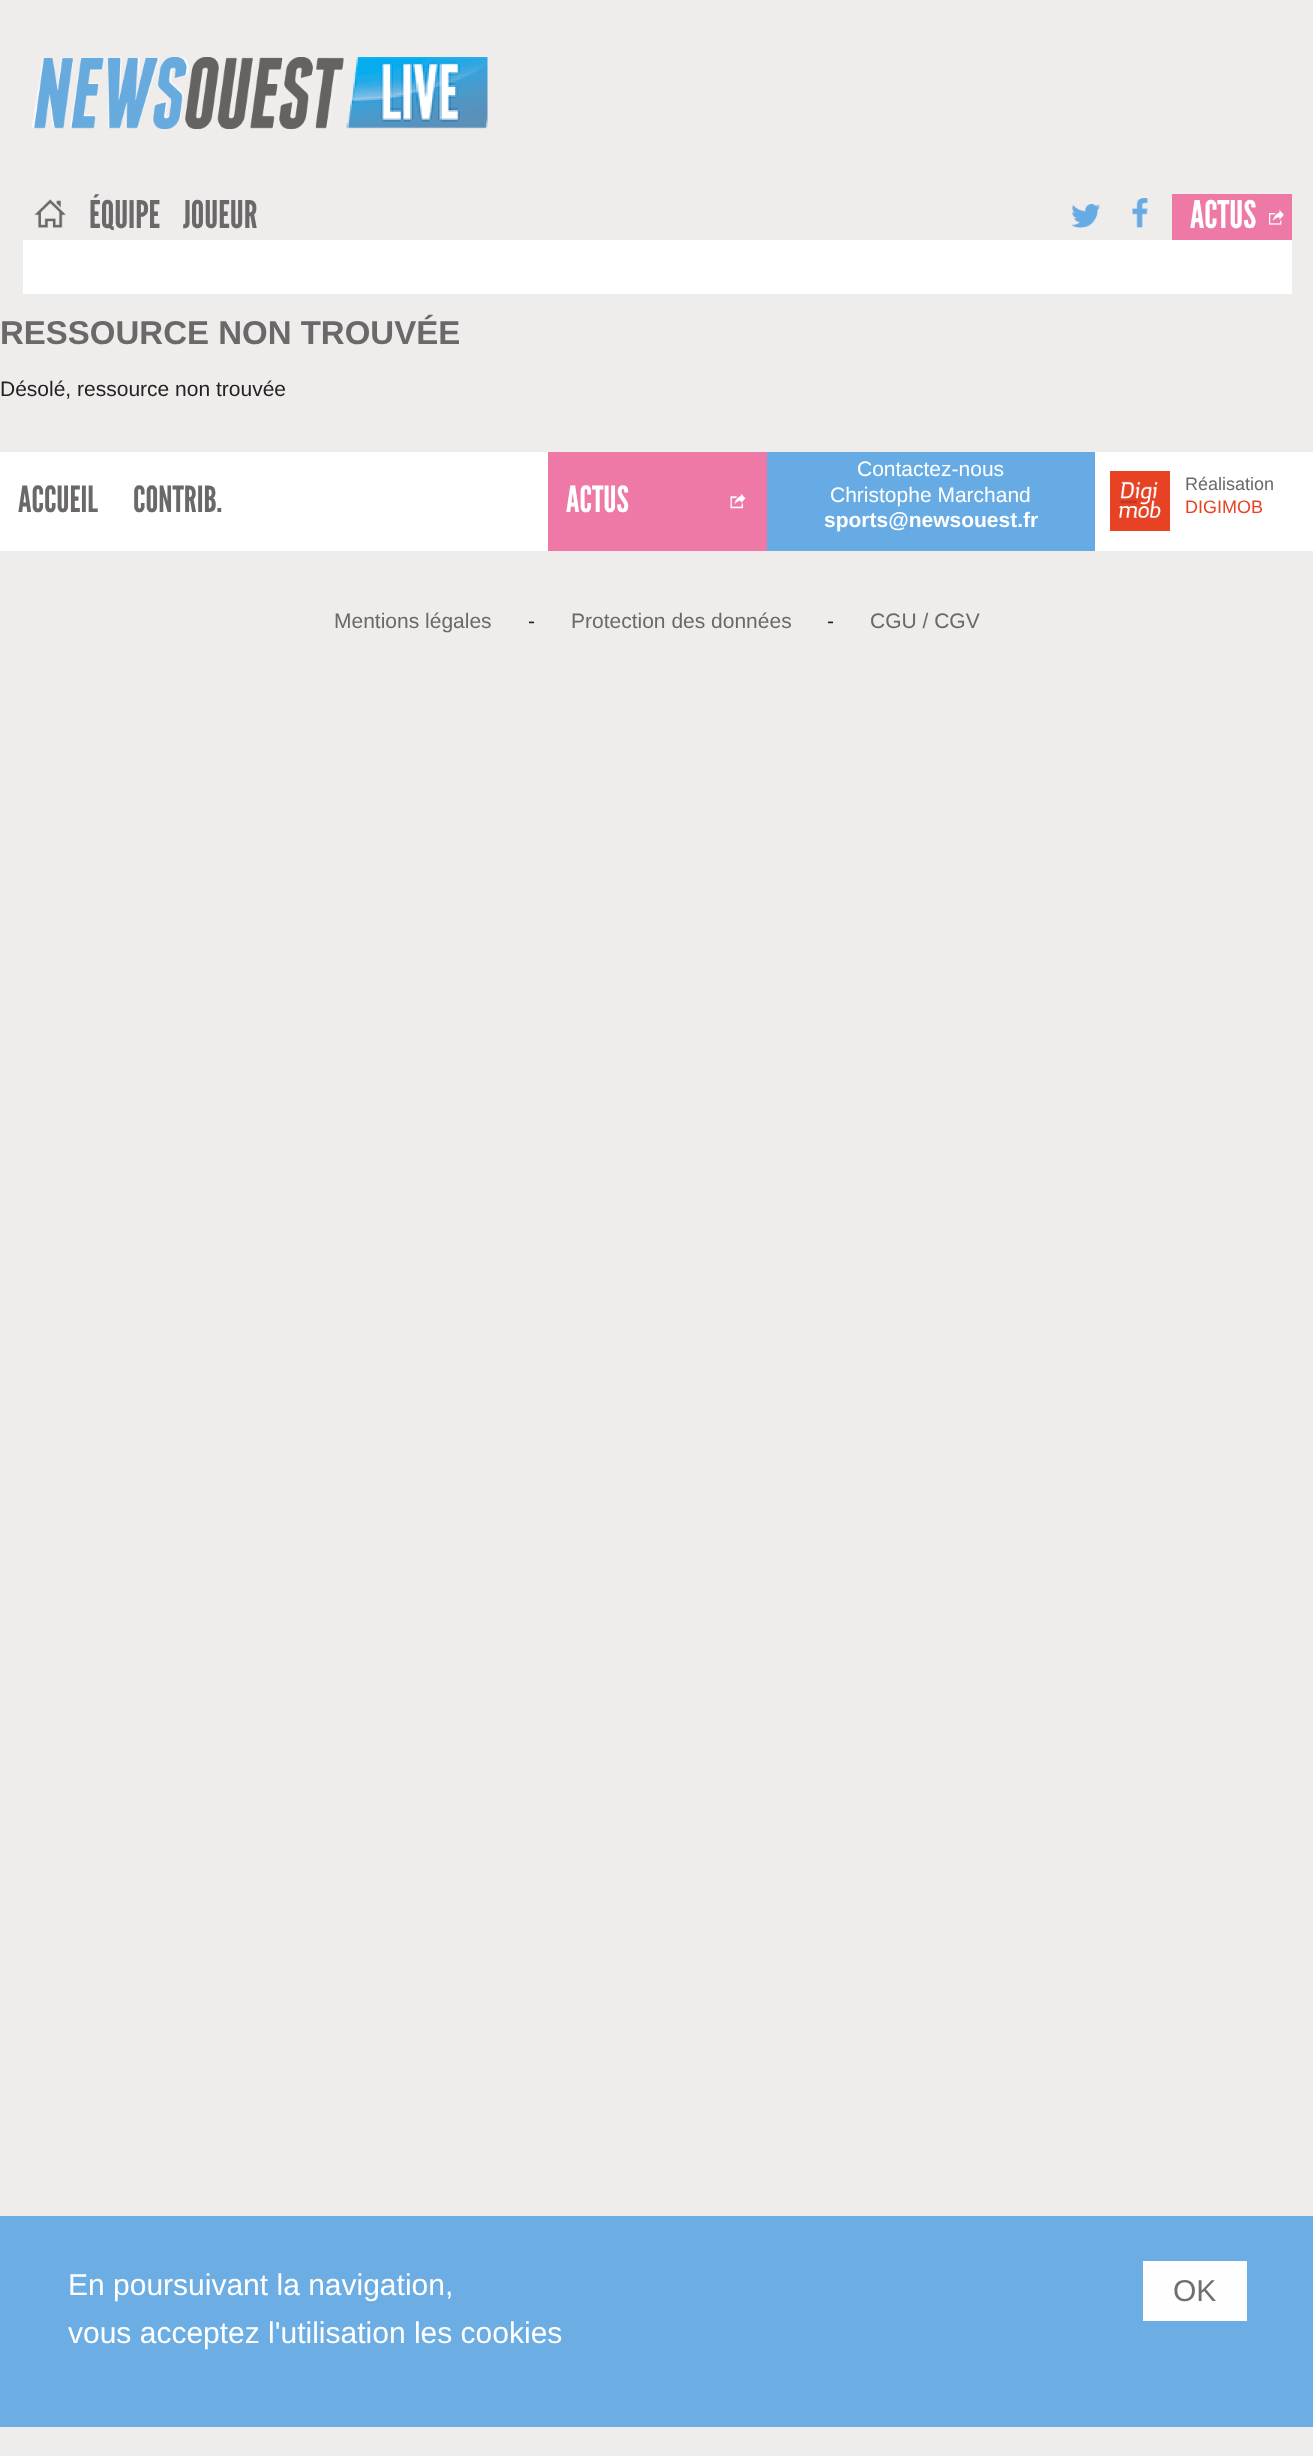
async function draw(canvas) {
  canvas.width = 1313
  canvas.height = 2456
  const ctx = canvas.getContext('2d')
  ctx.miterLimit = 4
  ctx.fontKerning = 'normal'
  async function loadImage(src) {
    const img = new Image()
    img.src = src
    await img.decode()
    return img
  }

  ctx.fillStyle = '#efecec'
  ctx.fillRect(0, 0, 1313, 2456)
  ctx.drawImage(await loadImage('image0.png'), 32, 57, 456, 72)
  ctx.drawImage(await loadImage('image1.png'), 34, 199, 32, 29)
  ctx.font = '38px League Gothic'
  ctx.fillStyle = '#6a6868'
  ctx.fillText('ÉQUIPE', 89, 228)
  ctx.fillText('JOUEUR', 183, 228)
  ctx.drawImage(await loadImage('image2.png'), 1071, 204, 30, 24)
  ctx.drawImage(await loadImage('image3.png'), 1132, 198, 16, 30)
  ctx.fillStyle = '#ee79a7'
  ctx.fillRect(1172, 194, 120, 46)
  ctx.drawImage(await loadImage('image4.png'), 1269, 210, 15, 15)
  ctx.fillStyle = '#fff'
  ctx.fillText('ACTUS', 1190, 228)
  ctx.fillRect(23, 240, 1269, 54)
  ctx.font = 'bold 33px Liberation Sans'
  ctx.fillStyle = '#6a6868'
  ctx.fillText('RESSOURCE NON TROUVÉE', 0, 344)
  ctx.font = '21px Liberation Sans'
  ctx.fillStyle = '#222'
  ctx.fillText('Désolé, ressource non trouvée', 0, 396)
  ctx.fillStyle = '#fff'
  ctx.fillRect(0, 452, 548, 99)
  ctx.font = '36px League Gothic'
  ctx.fillStyle = '#6a6868'
  ctx.fillText('ACCUEIL', 18, 512)
  ctx.fillText('CONTRIB.', 133, 512)
  ctx.fillStyle = '#ee79a7'
  ctx.fillRect(548, 452, 219, 99)
  ctx.drawImage(await loadImage('image5.png'), 730, 493, 16, 16)
  ctx.fillStyle = '#fff'
  ctx.fillText('ACTUS', 566, 512)
  ctx.fillStyle = '#66abe4'
  ctx.fillRect(767, 452, 328, 99)
  ctx.font = '21px Liberation Sans'
  ctx.fillStyle = '#fff'
  ctx.fillText('Contactez-nous', 857, 476)
  ctx.fillText('Christophe Marchand', 830, 502)
  ctx.font = 'bold 21px Liberation Sans'
  ctx.fillText('sports@newsouest.fr', 824, 527)
  ctx.fillRect(1095, 452, 218, 99)
  ctx.drawImage(await loadImage('image6.png'), 1110, 471, 60, 60)
  ctx.font = '18px Liberation Sans'
  ctx.fillStyle = '#6a6868'
  ctx.fillText('Réalisation', 1185, 490)
  ctx.fillStyle = '#e74223'
  ctx.fillText('DIGIMOB', 1185, 513)
  ctx.font = '21px Liberation Sans'
  ctx.fillStyle = '#6a6868'
  ctx.fillText('Mentions légales', 334, 628)
  ctx.fillStyle = '#222'
  ctx.fillText('-', 528, 628)
  ctx.fillStyle = '#6a6868'
  ctx.fillText('Protection des données', 571, 628)
  ctx.fillStyle = '#222'
  ctx.fillText('-', 827, 628)
  ctx.fillStyle = '#6a6868'
  ctx.fillText('CGU / CGV', 870, 628)
  ctx.fillStyle = '#6caee4'
  ctx.fillRect(0, 2216, 1313, 211)
  ctx.font = '30px Liberation Sans'
  ctx.fillStyle = '#fff'
  ctx.fillText('En poursuivant la navigation,', 68, 2295)
  ctx.fillText('vous acceptez l\'utilisation les cookies', 68, 2343)
  ctx.fillStyle = '#fefefe'
  ctx.fillRect(1143, 2261, 104, 60)
  ctx.fillStyle = '#706e6e'
  ctx.fillText('OK', 1173, 2301)
}

draw(document.querySelector('canvas'))
